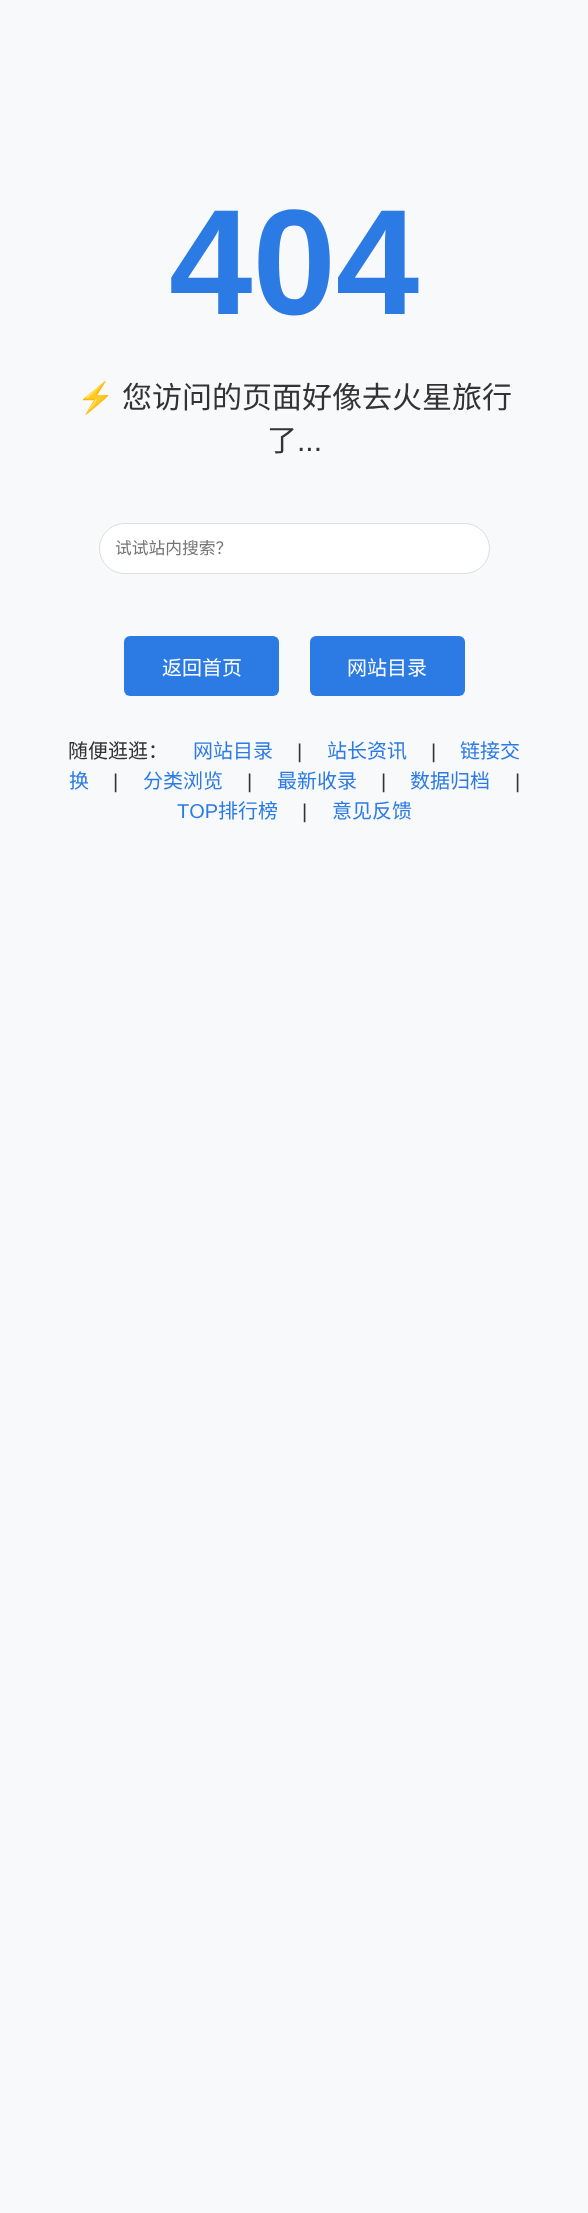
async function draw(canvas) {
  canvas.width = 588
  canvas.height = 2213
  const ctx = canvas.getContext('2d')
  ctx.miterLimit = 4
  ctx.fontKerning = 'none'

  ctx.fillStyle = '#f8f9fa'
  ctx.fillRect(0, 0, 588, 2213)
  ctx.font = 'bold 150px Liberation Sans'
  ctx.fillStyle = '#2c7be5'
  ctx.fillText('404', 169, 314)
  ctx.font = '30px Noto Color Emoji'
  ctx.fillStyle = '#333'
  ctx.fillText('⚡', 77, 408)
  ctx.font = '30px Noto Sans CJK SC'
  ctx.fillText('您访问的页面好像去火星旅行', 122, 408)
  ctx.fillText('了', 267, 451)
  ctx.font = '30px Liberation Sans'
  ctx.fillText('...', 297, 451)
  ctx.fillStyle = '#fff'
  ctx.beginPath()
  ctx.roundRect(99.5, 523.5, 390, 50, 25)
  ctx.fill()
  ctx.strokeStyle = '#ddd'
  ctx.stroke()
  ctx.font = '16.75px Noto Sans CJK SC'
  ctx.fillStyle = '#757575'
  ctx.fillText('试试站内搜索？', 115, 554)
  ctx.fillStyle = '#2c7be5'
  ctx.beginPath()
  ctx.roundRect(124, 636, 155, 60, 6)
  ctx.fill()
  ctx.font = '20px Noto Sans CJK SC'
  ctx.fillStyle = '#fff'
  ctx.fillText('返回首页', 162, 675)
  ctx.fillStyle = '#2c7be5'
  ctx.beginPath()
  ctx.roundRect(310, 636, 155, 60, 6)
  ctx.fill()
  ctx.fillStyle = '#fff'
  ctx.fillText('网站目录', 347, 675)
  ctx.fillStyle = '#333'
  ctx.fillText('随便逛逛：', 68, 758)
  ctx.fillStyle = '#2c7be5'
  ctx.fillText('网站目录', 193, 758)
  ctx.font = '20px Liberation Sans'
  ctx.fillStyle = '#333'
  ctx.fillText('|', 297, 758)
  ctx.font = '20px Noto Sans CJK SC'
  ctx.fillStyle = '#2c7be5'
  ctx.fillText('站长资讯', 327, 758)
  ctx.font = '20px Liberation Sans'
  ctx.fillStyle = '#333'
  ctx.fillText('|', 431, 758)
  ctx.font = '20px Noto Sans CJK SC'
  ctx.fillStyle = '#2c7be5'
  ctx.fillText('链接交', 460, 758)
  ctx.fillText('换', 69, 788)
  ctx.font = '20px Liberation Sans'
  ctx.fillStyle = '#333'
  ctx.fillText('|', 113, 788)
  ctx.font = '20px Noto Sans CJK SC'
  ctx.fillStyle = '#2c7be5'
  ctx.fillText('分类浏览', 143, 788)
  ctx.font = '20px Liberation Sans'
  ctx.fillStyle = '#333'
  ctx.fillText('|', 247, 788)
  ctx.font = '20px Noto Sans CJK SC'
  ctx.fillStyle = '#2c7be5'
  ctx.fillText('最新收录', 277, 788)
  ctx.font = '20px Liberation Sans'
  ctx.fillStyle = '#333'
  ctx.fillText('|', 381, 788)
  ctx.font = '20px Noto Sans CJK SC'
  ctx.fillStyle = '#2c7be5'
  ctx.fillText('数据归档', 410, 788)
  ctx.font = '20px Liberation Sans'
  ctx.fillStyle = '#333'
  ctx.fillText('|', 515, 788)
  ctx.fillStyle = '#2c7be5'
  ctx.fillText('TOP', 177, 818)
  ctx.font = '20px Noto Sans CJK SC'
  ctx.fillText('排行榜', 218, 818)
  ctx.font = '20px Liberation Sans'
  ctx.fillStyle = '#333'
  ctx.fillText('|', 302, 818)
  ctx.font = '20px Noto Sans CJK SC'
  ctx.fillStyle = '#2c7be5'
  ctx.fillText('意见反馈', 332, 818)
}

draw(document.querySelector('canvas'))
